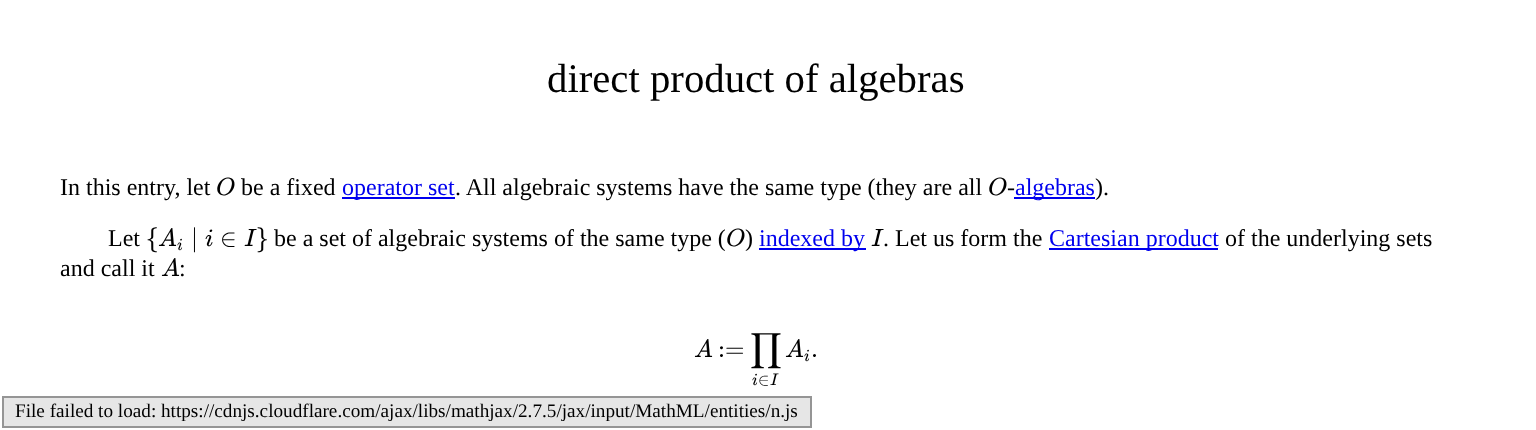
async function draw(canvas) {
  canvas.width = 1536
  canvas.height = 430
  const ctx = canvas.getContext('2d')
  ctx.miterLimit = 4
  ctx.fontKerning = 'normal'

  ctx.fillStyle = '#fff'
  ctx.fillRect(0, 0, 1536, 430)
  ctx.font = '40.75px Liberation Serif'
  ctx.fillStyle = '#000'
  ctx.fillText('direct product of algebras', 547, 92)
  ctx.font = '24px Liberation Serif'
  ctx.fillText('In this entry, let', 60, 195)
  ctx.font = 'italic 25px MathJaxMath'
  ctx.fillText('O', 216, 195)
  ctx.font = '24px Liberation Serif'
  ctx.fillText('be a fixed', 241, 195)
  ctx.fillStyle = '#00e'
  ctx.fillRect(342, 197, 113, 2)
  ctx.fillText('operator set', 342, 195)
  ctx.fillStyle = '#000'
  ctx.fillText('. All algebraic systems have the same type (they are all', 455, 195)
  ctx.font = 'italic 25px MathJaxMath'
  ctx.fillText('O', 988, 195)
  ctx.font = '24px Liberation Serif'
  ctx.fillText('-', 1007, 195)
  ctx.fillStyle = '#00e'
  ctx.fillRect(1014, 197, 81, 2)
  ctx.fillText('algebras', 1015, 195)
  ctx.fillStyle = '#000'
  ctx.fillText(').', 1095, 195)
  ctx.fillText('Let', 108, 246)
  ctx.font = '25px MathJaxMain'
  ctx.fillText('{', 146, 246)
  ctx.font = 'italic 25px MathJaxMath'
  ctx.fillText('A', 158, 246)
  ctx.font = 'italic 17px MathJaxMath'
  ctx.fillText('i', 177, 250)
  ctx.font = '25px MathJaxMain'
  ctx.fillText('∣', 191, 246)
  ctx.font = 'italic 25px MathJaxMath'
  ctx.fillText('i', 205, 246)
  ctx.font = '25px MathJaxMain'
  ctx.fillText('∈', 220, 246)
  ctx.font = 'italic 25px MathJaxMath'
  ctx.fillText('I', 244, 246)
  ctx.font = '25px MathJaxMain'
  ctx.fillText('}', 256, 246)
  ctx.font = '24px Liberation Serif'
  ctx.fillText('be a set of algebraic systems of the same type (', 274, 246)
  ctx.font = 'italic 25px MathJaxMath'
  ctx.fillText('O', 726, 246)
  ctx.font = '24px Liberation Serif'
  ctx.fillText(')', 745, 246)
  ctx.fillStyle = '#00e'
  ctx.fillRect(759, 248, 107, 2)
  ctx.fillText('indexed by', 759, 246)
  ctx.font = 'italic 25px MathJaxMath'
  ctx.fillStyle = '#000'
  ctx.fillText('I', 871, 246)
  ctx.font = '24px Liberation Serif'
  ctx.fillText('. Let us form the', 883, 246)
  ctx.fillStyle = '#00e'
  ctx.fillRect(1049, 248, 169, 2)
  ctx.fillText('Cartesian product', 1049, 246)
  ctx.fillStyle = '#000'
  ctx.fillText('of the underlying sets', 1225, 246)
  ctx.fillText('and call it', 60, 276)
  ctx.font = 'italic 25px MathJaxMath'
  ctx.fillText('A', 161, 276)
  ctx.font = '24px Liberation Serif'
  ctx.fillText(':', 179, 276)
  ctx.font = 'italic 25px MathJaxMath'
  ctx.fillText('A', 694, 357)
  ctx.font = '25px MathJaxMain'
  ctx.fillText(':=', 718, 357)
  ctx.font = '25px "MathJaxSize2"'
  ctx.fillText('∏', 750, 357)
  ctx.font = 'italic 17px MathJaxMath'
  ctx.fillText('i', 752, 385)
  ctx.font = '17px MathJaxMain'
  ctx.fillText('∈', 758, 385)
  ctx.font = 'italic 17px MathJaxMath'
  ctx.fillText('I', 770, 385)
  ctx.font = 'italic 25px MathJaxMath'
  ctx.fillText('A', 785, 357)
  ctx.font = 'italic 17px MathJaxMath'
  ctx.fillText('i', 804, 361)
  ctx.font = '25px MathJaxMain'
  ctx.fillText('.', 811, 357)
  ctx.fillStyle = '#e6e6e6'
  ctx.beginPath()
  ctx.rect(3, 397, 808, 30)
  ctx.fill()
  ctx.strokeStyle = '#959595'
  ctx.lineWidth = 2
  ctx.stroke()
  ctx.font = '19.2px Liberation Serif'
  ctx.fillStyle = '#000'
  ctx.fillText('File failed to load: https://cdnjs.cloudflare.com/ajax/libs/mathjax/2.7.5/jax/input/MathML/entities/n.js', 15, 417)
}

draw(document.querySelector('canvas'))
